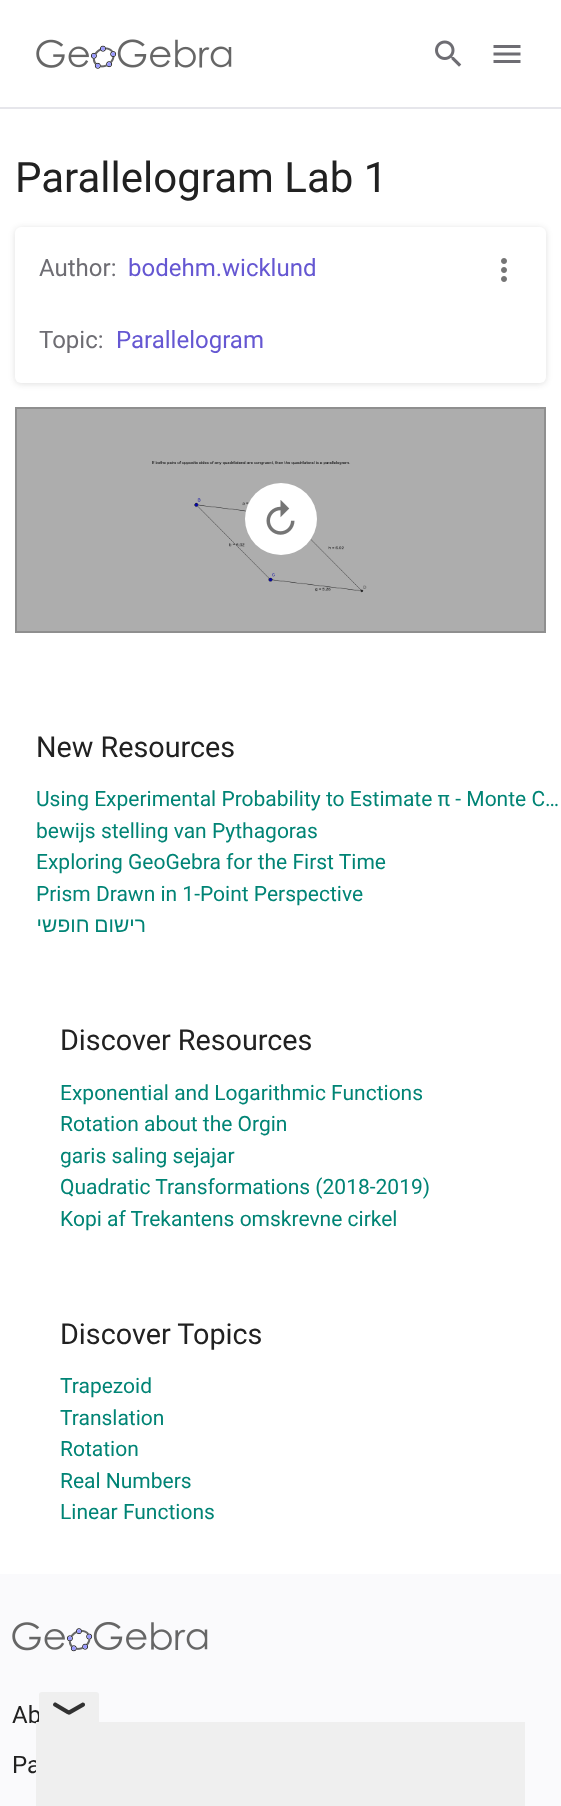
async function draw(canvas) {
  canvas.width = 561
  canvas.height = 1806
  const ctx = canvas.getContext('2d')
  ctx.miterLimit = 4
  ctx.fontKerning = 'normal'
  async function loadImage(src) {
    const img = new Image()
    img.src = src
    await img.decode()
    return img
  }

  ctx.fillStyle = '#fff'
  ctx.fillRect(0, 0, 561, 1806)
  ctx.fillStyle = '#adadad'
  ctx.fillRect(17, 409, 527, 222)
  ctx.fillStyle = '#e6e6eb'
  ctx.fillRect(0, 107, 561, 2)
  ctx.drawImage(await loadImage('image0.png'), 36, 39, 196, 30)
  ctx.drawImage(await loadImage('image1.png'), 435, 40, 27, 27)
  ctx.drawImage(await loadImage('image2.png'), 493, 45, 28, 18)
  ctx.font = '42px Roboto'
  ctx.fillStyle = '#212121'
  ctx.fillText('Parallelogram Lab 1', 15, 192)
  ctx.fillStyle = '#1c1c1f24'
  ctx.filter = 'blur(3px)'
  ctx.beginPath()
  ctx.roundRect(15, 228, 531, 156, 6)
  ctx.fill()
  ctx.filter = 'none'
  ctx.fillStyle = '#fff'
  ctx.beginPath()
  ctx.roundRect(15, 227, 531, 156, 6)
  ctx.fill()
  ctx.font = '24px Roboto'
  ctx.fillStyle = '#6e6d73'
  ctx.fillText('Author:', 39, 276)
  ctx.fillStyle = '#6557d2'
  ctx.fillText('bodehm.wicklund', 128, 276)
  ctx.fillStyle = '#6e6d73'
  ctx.fillText('Topic:', 39, 348)
  ctx.fillStyle = '#6557d2'
  ctx.fillText('Parallelogram', 116, 348)
  ctx.drawImage(await loadImage('image3.png'), 501, 258, 6, 24)
  ctx.drawImage(await loadImage('image4.png'), 152, 461, 215, 132)
  ctx.strokeStyle = '#8f8f8f'
  ctx.lineWidth = 2
  ctx.strokeRect(16, 408, 529, 224)
  ctx.fillStyle = '#fff'
  ctx.beginPath()
  ctx.arc(281, 519, 36, 0, 2 * Math.PI)
  ctx.fill()
  ctx.drawImage(await loadImage('image5.png'), 266, 500, 29, 35)
  ctx.font = '28.75px Roboto'
  ctx.fillStyle = '#212121'
  ctx.fillText('New Resources', 36, 757)
  ctx.font = '21px Roboto'
  ctx.fillStyle = '#008475'
  ctx.fillText('Using Experimental Probability to Estimate π - Monte C…', 36, 806)
  ctx.fillText('bewijs stelling van Pythagoras', 36, 838)
  ctx.fillText('Exploring GeoGebra for the First Time', 36, 869)
  ctx.fillText('Prism Drawn in 1-Point Perspective', 36, 901)
  ctx.wordSpacing = '-1px'
  ctx.direction = 'rtl'
  ctx.font = '21px Liberation Sans'
  ctx.fillText('רישום חופשי', 146, 932)
  ctx.wordSpacing = '0px'
  ctx.direction = 'ltr'
  ctx.font = '28.75px Roboto'
  ctx.fillStyle = '#212121'
  ctx.fillText('Discover Resources', 60, 1050)
  ctx.font = '21px Roboto'
  ctx.fillStyle = '#008475'
  ctx.fillText('Exponential and Logarithmic Functions', 60, 1100)
  ctx.fillText('Rotation about the Orgin', 60, 1131)
  ctx.fillText('garis saling sejajar', 60, 1163)
  ctx.fillText('Quadratic Transformations (2018-2019)', 60, 1194)
  ctx.fillText('Kopi af Trekantens omskrevne cirkel', 60, 1226)
  ctx.font = '28.75px Roboto'
  ctx.fillStyle = '#212121'
  ctx.fillText('Discover Topics', 60, 1344)
  ctx.font = '21px Roboto'
  ctx.fillStyle = '#008475'
  ctx.fillText('Trapezoid', 60, 1393)
  ctx.fillText('Translation', 60, 1425)
  ctx.fillText('Rotation', 60, 1456)
  ctx.fillText('Real Numbers', 60, 1488)
  ctx.fillText('Linear Functions', 60, 1519)
  ctx.fillStyle = '#fafafc'
  ctx.fillRect(0, 1574, 561, 232)
  ctx.drawImage(await loadImage('image6.png'), 12, 1622, 196, 30)
  ctx.font = '24px Roboto'
  ctx.fillStyle = '#212121'
  ctx.fillText('Ab', 12, 1723)
  ctx.fillText('Pa', 12, 1773)
  ctx.fillStyle = '#efefef'
  ctx.beginPath()
  ctx.roundRect(39, 1692, 60, 30, [3, 3, 0, 0])
  ctx.fill()
  ctx.fillStyle = '#313131'
  ctx.beginPath()
  ctx.moveTo(56.5, 1703)
  ctx.lineTo(70, 1711)
  ctx.bezierCurveTo(71.5, 1713, 69.5, 1715.5, 67, 1714)
  ctx.lineTo(53.5, 1706)
  ctx.bezierCurveTo(52, 1704, 54.5, 1701.5, 56.5, 1703)
  ctx.closePath()
  ctx.fill()
  ctx.beginPath()
  ctx.moveTo(68.5, 1710.5)
  ctx.lineTo(82.5, 1702.5)
  ctx.bezierCurveTo(85, 1702, 86, 1705.5, 84, 1706.5)
  ctx.lineTo(70, 1714.5)
  ctx.bezierCurveTo(67.5, 1715, 66.5, 1711.5, 68.5, 1710.5)
  ctx.closePath()
  ctx.fill()
  ctx.fillStyle = '#efefef'
  ctx.fillRect(36, 1722, 489, 84)
}

draw(document.querySelector('canvas'))
